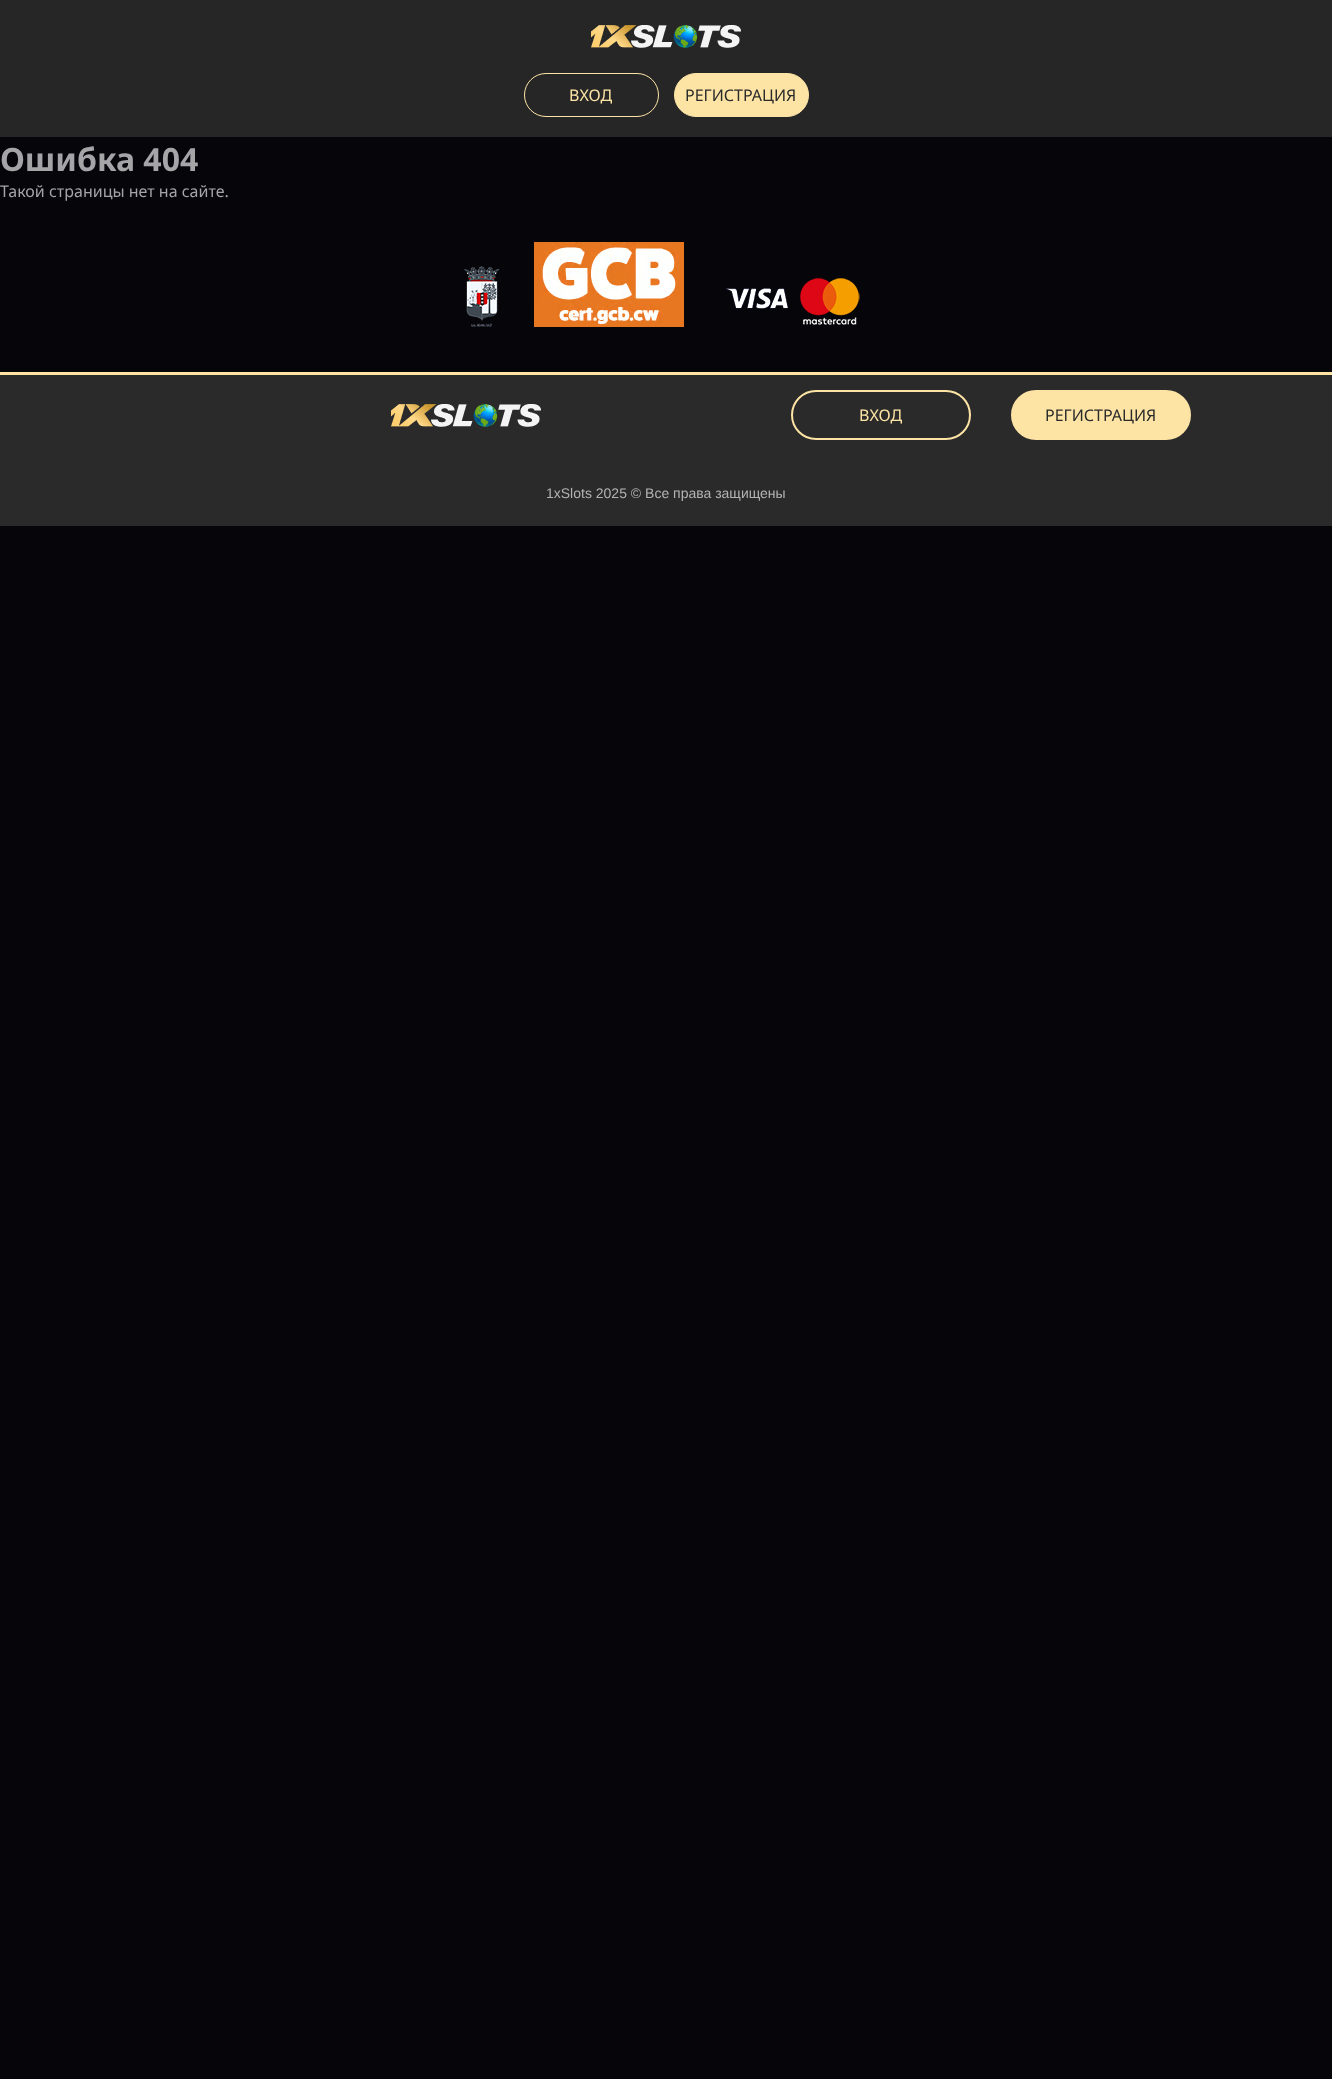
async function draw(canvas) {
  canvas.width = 1332
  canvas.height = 2079
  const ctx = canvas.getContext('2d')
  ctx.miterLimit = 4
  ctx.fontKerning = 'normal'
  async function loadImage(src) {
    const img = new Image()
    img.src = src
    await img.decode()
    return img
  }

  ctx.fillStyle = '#06050a'
  ctx.fillRect(0, 0, 1332, 2079)
  ctx.fillStyle = '#262627'
  ctx.fillRect(0, 0, 1332, 137)
  ctx.drawImage(await loadImage('image0.png'), 591, 25, 150, 23)
  ctx.beginPath()
  ctx.roundRect(524.5, 73.5, 134, 43, 21.5)
  ctx.strokeStyle = '#fde4a5'
  ctx.stroke()
  ctx.font = '16px Noto Sans'
  ctx.fillStyle = '#fde4a5'
  ctx.fillText('ВХОД', 569, 101)
  ctx.beginPath()
  ctx.roundRect(674.5, 73.5, 134, 43, 21.5)
  ctx.fill()
  ctx.stroke()
  ctx.fillStyle = '#2a2a2b'
  ctx.fillText('РЕГИСТРАЦИЯ', 685, 101)
  ctx.font = 'bold 32px Noto Sans'
  ctx.fillStyle = '#a5a5a7'
  ctx.fillText('Ошибка 404', 0, 171)
  ctx.font = '16px Noto Sans'
  ctx.fillText('Такой страницы нет на сайте.', 0, 197)
  ctx.drawImage(await loadImage('image1.png'), 464, 266, 36, 61)
  ctx.drawImage(await loadImage('image2.png'), 534, 242, 150, 85)
  ctx.drawImage(await loadImage('image3.png'), 726, 278, 134, 47)
  ctx.fillStyle = '#2a2a2b'
  ctx.fillRect(0, 375, 1332, 151)
  ctx.fillStyle = '#fde4a5'
  ctx.fillRect(0, 372, 1332, 3)
  ctx.drawImage(await loadImage('image4.png'), 391, 404, 150, 23)
  ctx.beginPath()
  ctx.roundRect(792, 391, 178, 48, 24)
  ctx.lineWidth = 2
  ctx.stroke()
  ctx.fillText('ВХОД', 859, 421)
  ctx.beginPath()
  ctx.roundRect(1012, 391, 178, 48, 24)
  ctx.fill()
  ctx.stroke()
  ctx.fillStyle = '#2a2a2b'
  ctx.fillText('РЕГИСТРАЦИЯ', 1045, 421)
  ctx.font = '14px Liberation Sans'
  ctx.fillStyle = '#b3b3b3'
  ctx.fillText('1xSlots 2025 © Все права защищены', 546, 498)
}

draw(document.querySelector('canvas'))
